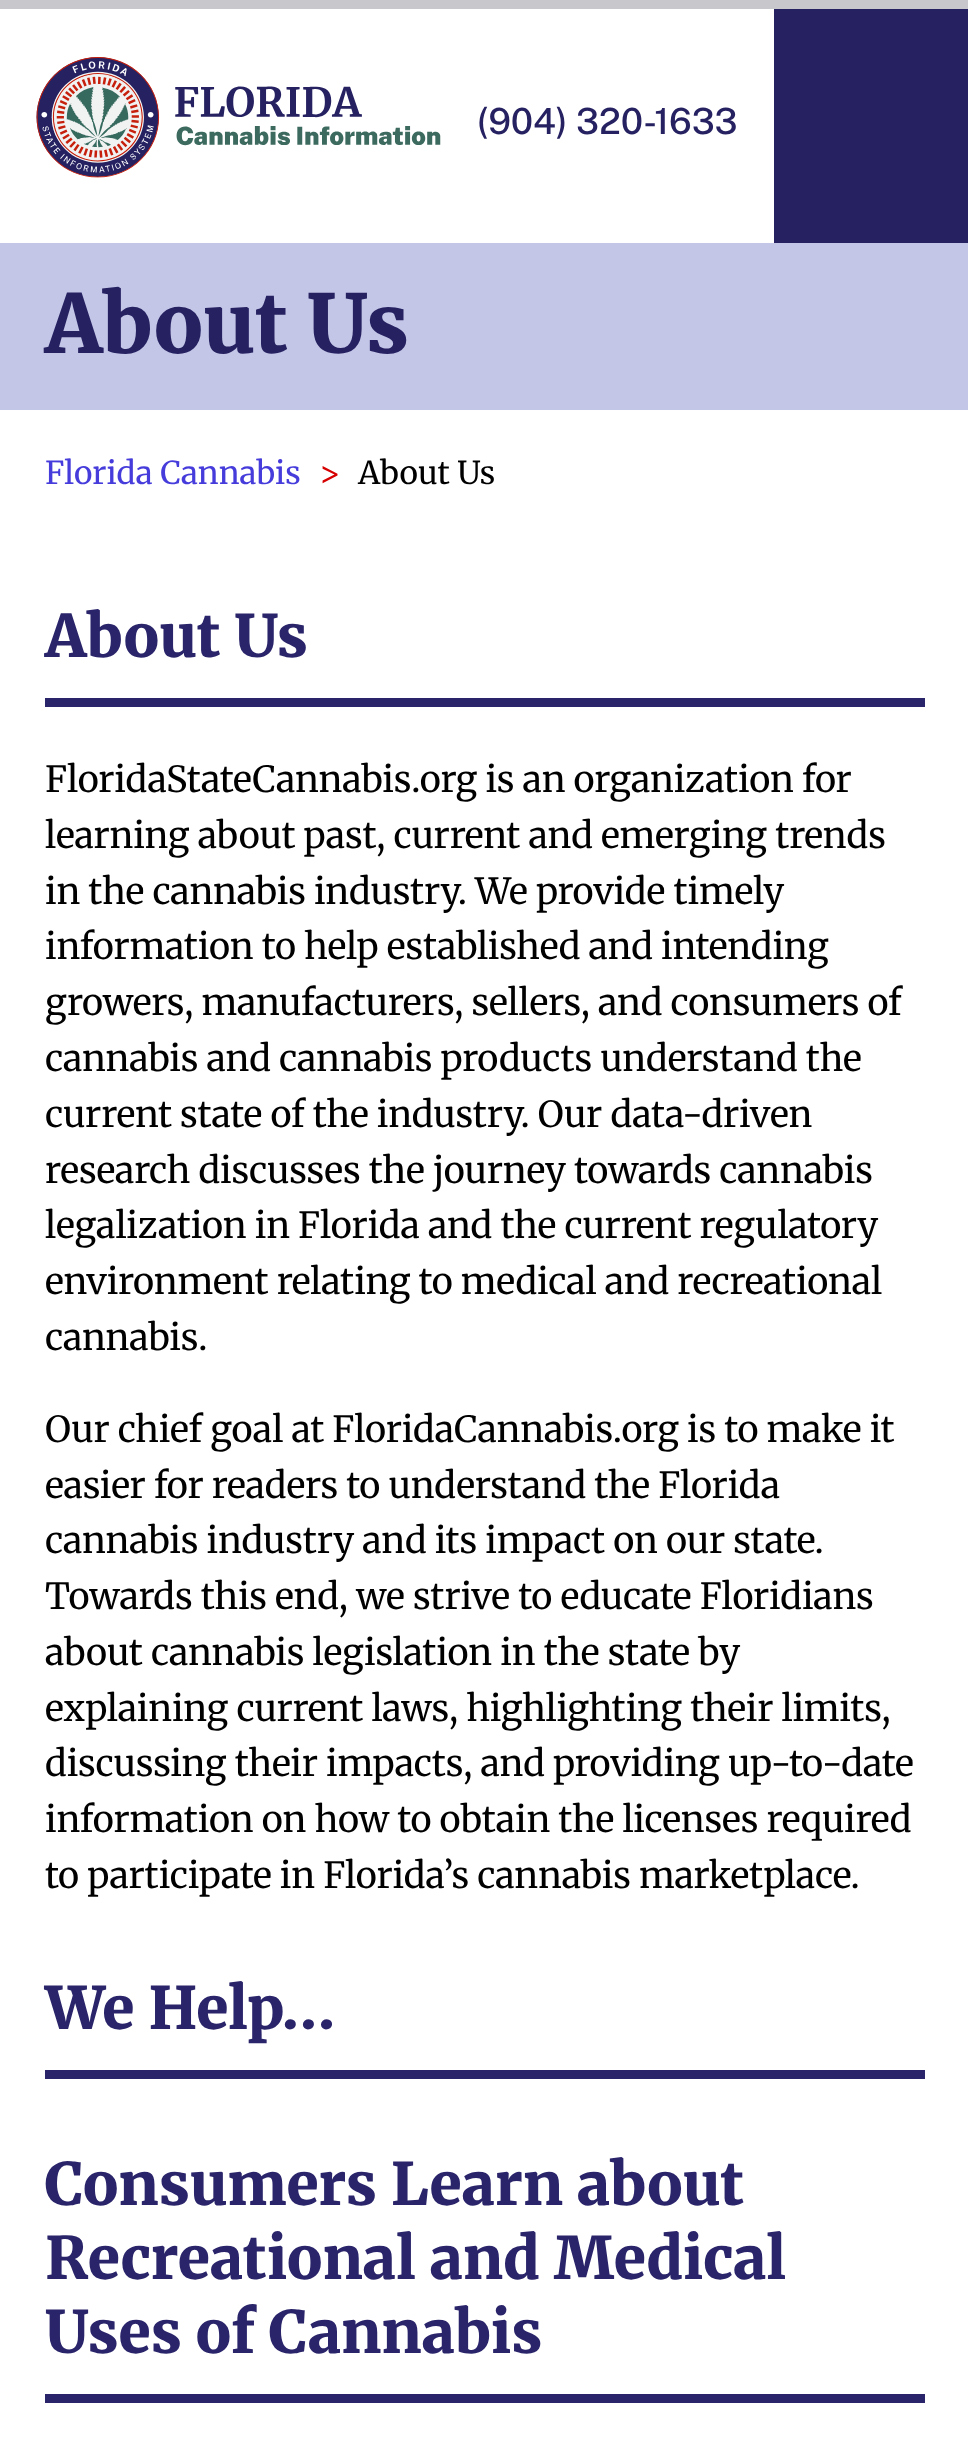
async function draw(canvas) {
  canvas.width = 968
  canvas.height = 2446
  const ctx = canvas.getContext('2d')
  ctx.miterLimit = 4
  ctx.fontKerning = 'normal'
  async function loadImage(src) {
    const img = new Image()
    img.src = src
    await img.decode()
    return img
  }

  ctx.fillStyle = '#fff'
  ctx.fillRect(0, 0, 968, 2446)
  ctx.fillStyle = '#c7c7cc'
  ctx.fillRect(0, 0, 968, 9)
  ctx.drawImage(await loadImage('image0.png'), 36, 57, 405, 121)
  ctx.font = '500 36px Public Sans'
  ctx.fillStyle = '#262262'
  ctx.fillText('(904) 320-1633', 477, 134)
  ctx.fillRect(774, 9, 194, 234)
  ctx.fillStyle = '#c4c6e7'
  ctx.fillRect(0, 243, 968, 167)
  ctx.font = '900 81px Merriweather'
  ctx.fillStyle = '#262262'
  ctx.fillText('About Us', 45, 353)
  ctx.font = '31.5px Merriweather'
  ctx.fillStyle = '#463cdb'
  ctx.fillText('Florida Cannabis', 45, 484)
  ctx.fillStyle = '#d60000'
  ctx.fillText('>', 319, 484)
  ctx.fillStyle = '#000'
  ctx.fillText('About Us', 358, 484)
  ctx.font = '900 58.5px Merriweather'
  ctx.fillStyle = '#2a256a'
  ctx.fillText('About Us', 45, 657)
  ctx.fillRect(45, 698, 880, 9)
  ctx.letterSpacing = '-0.22px'
  ctx.font = '36px Merriweather'
  ctx.fillStyle = '#000'
  ctx.fillText('FloridaStateCannabis.org is an organization for', 45, 792)
  ctx.fillText('learning about past, current and emerging trends', 45, 848)
  ctx.fillText('in the cannabis industry. We provide timely', 45, 904)
  ctx.fillText('information to help established and intending', 45, 959)
  ctx.fillText('growers, manufacturers, sellers, and consumers of', 45, 1015)
  ctx.fillText('cannabis and cannabis products understand the', 45, 1071)
  ctx.fillText('current state of the industry. Our data-driven', 45, 1127)
  ctx.fillText('research discusses the journey towards cannabis', 45, 1183)
  ctx.fillText('legalization in Florida and the current regulatory', 45, 1238)
  ctx.fillText('environment relating to medical and recreational', 45, 1294)
  ctx.fillText('cannabis.', 45, 1350)
  ctx.fillText('Our chief goal at FloridaCannabis.org is to make it', 45, 1442)
  ctx.fillText('easier for readers to understand the Florida', 45, 1498)
  ctx.fillText('cannabis industry and its impact on our state.', 45, 1553)
  ctx.fillText('Towards this end, we strive to educate Floridians', 45, 1609)
  ctx.fillText('about cannabis legislation in the state by', 45, 1665)
  ctx.fillText('explaining current laws, highlighting their limits,', 45, 1721)
  ctx.fillText('discussing their impacts, and providing up-to-date', 45, 1776)
  ctx.fillText('information on how to obtain the licenses required', 45, 1832)
  ctx.fillText('to participate in Florida’s cannabis marketplace.', 45, 1888)
  ctx.letterSpacing = '0px'
  ctx.font = '900 58.5px Merriweather'
  ctx.fillStyle = '#2a256a'
  ctx.fillText('We Help…', 45, 2029)
  ctx.fillRect(45, 2070, 880, 9)
  ctx.fillText('Consumers Learn about', 45, 2205)
  ctx.fillText('Recreational and Medical', 45, 2279)
  ctx.fillText('Uses of Cannabis', 45, 2353)
  ctx.fillRect(45, 2394, 880, 9)
}

draw(document.querySelector('canvas'))
